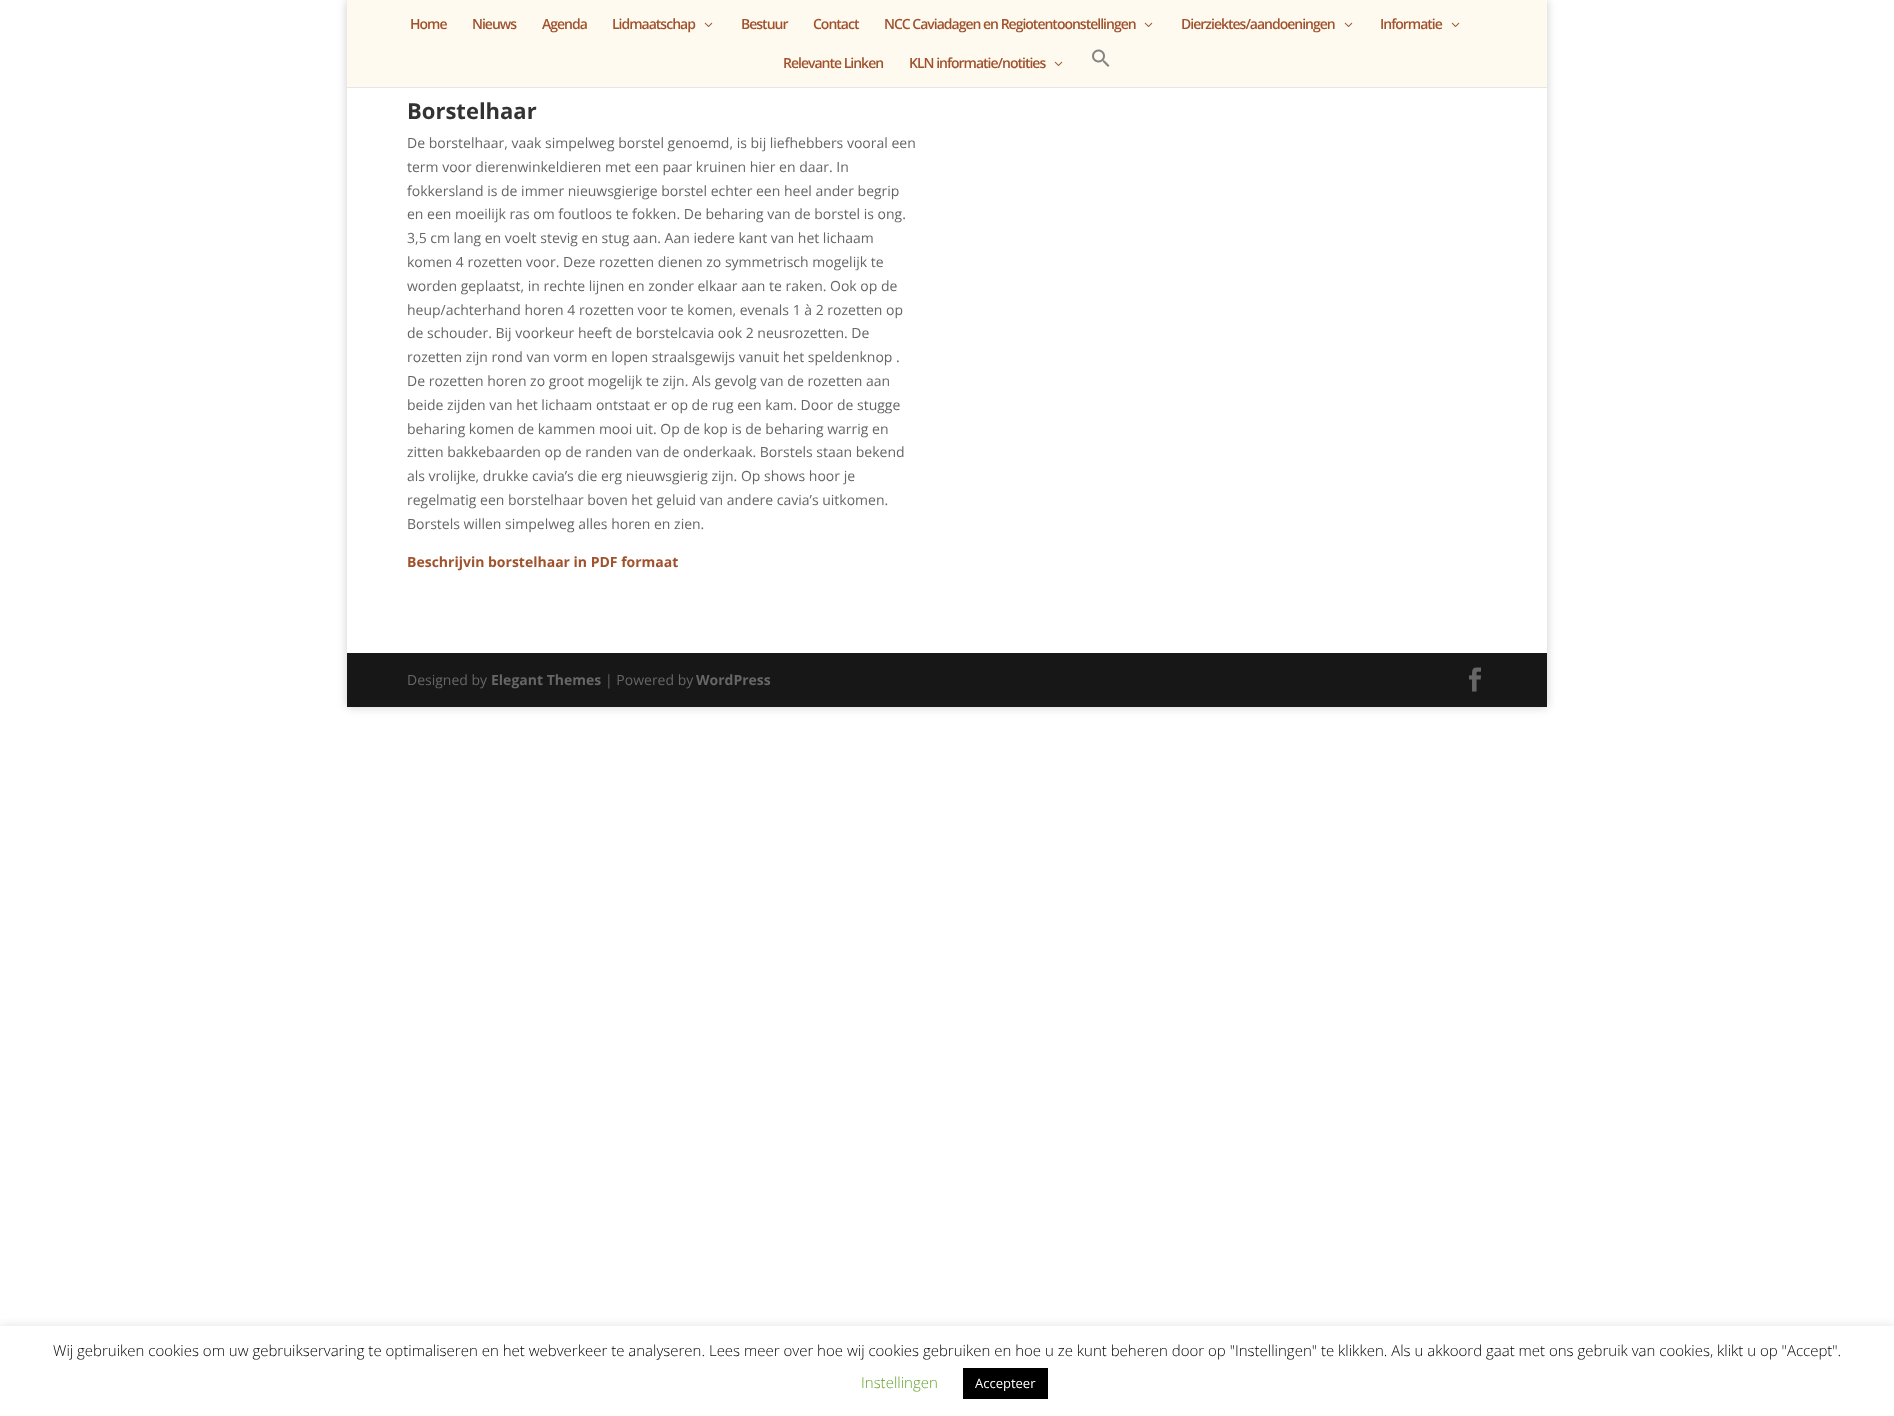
async function draw(canvas) {
  canvas.width = 1894
  canvas.height = 1416
  const ctx = canvas.getContext('2d')
  ctx.miterLimit = 4
  ctx.fontKerning = 'normal'
  async function loadImage(src) {
    const img = new Image()
    img.src = src
    await img.decode()
    return img
  }

  ctx.fillStyle = '#fff'
  ctx.fillRect(0, 0, 1894, 1416)
  ctx.save()
  ctx.beginPath()
  ctx.moveTo(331, 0)
  ctx.lineTo(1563, 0)
  ctx.lineTo(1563, 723)
  ctx.lineTo(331, 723)
  ctx.closePath()
  ctx.moveTo(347, 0)
  ctx.lineTo(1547, 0)
  ctx.lineTo(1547, 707)
  ctx.lineTo(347, 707)
  ctx.closePath()
  ctx.clip('evenodd')
  ctx.fillStyle = '#00000033'
  ctx.filter = 'blur(5px)'
  ctx.beginPath()
  ctx.rect(347, 0, 1200, 707)
  ctx.fill()
  ctx.filter = 'none'
  ctx.restore()
  ctx.fillStyle = '#e6e6e6'
  ctx.fillRect(347, 87, 1200, 1)
  ctx.fillStyle = '#fffaf0'
  ctx.fillRect(347, 0, 1200, 87)
  ctx.letterSpacing = '-1px'
  ctx.font = '600 14px Open Sans'
  ctx.fillStyle = '#a0522d'
  ctx.fillText('Home', 410, 29)
  ctx.fillText('Nieuws', 472, 29)
  ctx.fillText('Agenda', 542, 29)
  ctx.fillText('Lidmaatschap', 612, 29)
  ctx.drawImage(await loadImage('image0.png'), 704, 22, 9, 5)
  ctx.fillText('Bestuur', 741, 29)
  ctx.fillText('Contact', 813, 29)
  ctx.fillText('NCC Caviadagen en Regiotentoonstellingen', 884, 29)
  ctx.drawImage(await loadImage('image0.png'), 1144, 22, 9, 5)
  ctx.fillText('Dierziektes/aandoeningen', 1181, 29)
  ctx.drawImage(await loadImage('image0.png'), 1344, 22, 9, 5)
  ctx.fillText('Informatie', 1380, 29)
  ctx.drawImage(await loadImage('image0.png'), 1451, 22, 9, 5)
  ctx.fillText('Relevante Linken', 783, 68)
  ctx.fillText('KLN informatie/notities', 909, 68)
  ctx.drawImage(await loadImage('image0.png'), 1054, 61, 9, 5)
  ctx.drawImage(await loadImage('image1.png'), 1092, 49, 18, 18)
  ctx.letterSpacing = '0px'
  ctx.font = 'bold 22px Open Sans'
  ctx.fillStyle = '#333'
  ctx.fillText('Borstelhaar', 407, 119)
  ctx.font = '14px Open Sans'
  ctx.fillStyle = '#666'
  ctx.fillText('De borstelhaar, vaak simpelweg borstel genoemd, is bij liefhebbers vooral een', 407, 148)
  ctx.fillText('term voor dierenwinkeldieren met een paar kruinen hier en daar. In', 407, 172)
  ctx.fillText('fokkersland is de immer nieuwsgierige borstel echter een heel ander begrip', 407, 196)
  ctx.fillText('en een moeilijk ras om foutloos te fokken. De beharing van de borstel is ong.', 407, 219)
  ctx.fillText('3,5 cm lang en voelt stevig en stug aan. Aan iedere kant van het lichaam', 407, 243)
  ctx.fillText('komen 4 rozetten voor. Deze rozetten dienen zo symmetrisch mogelijk te', 407, 267)
  ctx.fillText('worden geplaatst, in rechte lijnen en zonder elkaar aan te raken. Ook op de', 407, 291)
  ctx.fillText('heup/achterhand horen 4 rozetten voor te komen, evenals 1 à 2 rozetten op', 407, 315)
  ctx.fillText('de schouder. Bij voorkeur heeft de borstelcavia ook 2 neusrozetten. De', 407, 338)
  ctx.fillText('rozetten zijn rond van vorm en lopen straalsgewijs vanuit het speldenknop .', 407, 362)
  ctx.fillText('De rozetten horen zo groot mogelijk te zijn. Als gevolg van de rozetten aan', 407, 386)
  ctx.fillText('beide zijden van het lichaam ontstaat er op de rug een kam. Door de stugge', 407, 410)
  ctx.fillText('beharing komen de kammen mooi uit. Op de kop is de beharing warrig en', 407, 434)
  ctx.fillText('zitten bakkebaarden op de randen van de onderkaak. Borstels staan bekend', 407, 457)
  ctx.fillText('als vrolijke, drukke cavia’s die erg nieuwsgierig zijn. Op shows hoor je', 407, 481)
  ctx.fillText('regelmatig een borstelhaar boven het geluid van andere cavia’s uitkomen.', 407, 505)
  ctx.fillText('Borstels willen simpelweg alles horen en zien.', 407, 529)
  ctx.font = 'bold 14px Open Sans'
  ctx.fillStyle = '#a0522d'
  ctx.fillText('Beschrijvin borstelhaar in PDF formaat', 407, 567)
  ctx.fillStyle = '#171717'
  ctx.fillRect(347, 653, 1200, 54)
  ctx.font = '14px Open Sans'
  ctx.fillStyle = '#666'
  ctx.fillText('Designed by', 407, 685)
  ctx.font = 'bold 14px Open Sans'
  ctx.fillText('Elegant Themes', 491, 685)
  ctx.font = '14px Open Sans'
  ctx.fillText('| Powered by', 605, 685)
  ctx.font = 'bold 14px Open Sans'
  ctx.fillText('WordPress', 696, 685)
  ctx.drawImage(await loadImage('image2.png'), 1469, 667, 12, 25)
  ctx.save()
  ctx.beginPath()
  ctx.rect(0, 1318, 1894, 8)
  ctx.clip()
  ctx.fillStyle = '#acabab4d'
  ctx.filter = 'blur(5px)'
  ctx.beginPath()
  ctx.rect(0, 1325, 1894, 90)
  ctx.fill()
  ctx.filter = 'none'
  ctx.restore()
  ctx.font = '300 15px Open Sans'
  ctx.fillStyle = '#000'
  ctx.fillText('Wij gebruiken cookies om uw gebruikservaring te optimaliseren en het webverkeer te analyseren. Lees meer over hoe wij cookies gebruiken en hoe u ze kunt beheren door op "Instellingen" te klikken. Als u akkoord gaat met ons gebruik van cookies, klikt u op "Accept".', 53, 1356)
  ctx.fillStyle = '#62a329'
  ctx.fillText('Instellingen', 861, 1388)
  ctx.fillStyle = '#000'
  ctx.fillRect(963, 1368, 85, 31)
  ctx.font = '13px Open Sans'
  ctx.fillStyle = '#fff'
  ctx.fillText('Accepteer', 975, 1388)
}

draw(document.querySelector('canvas'))
